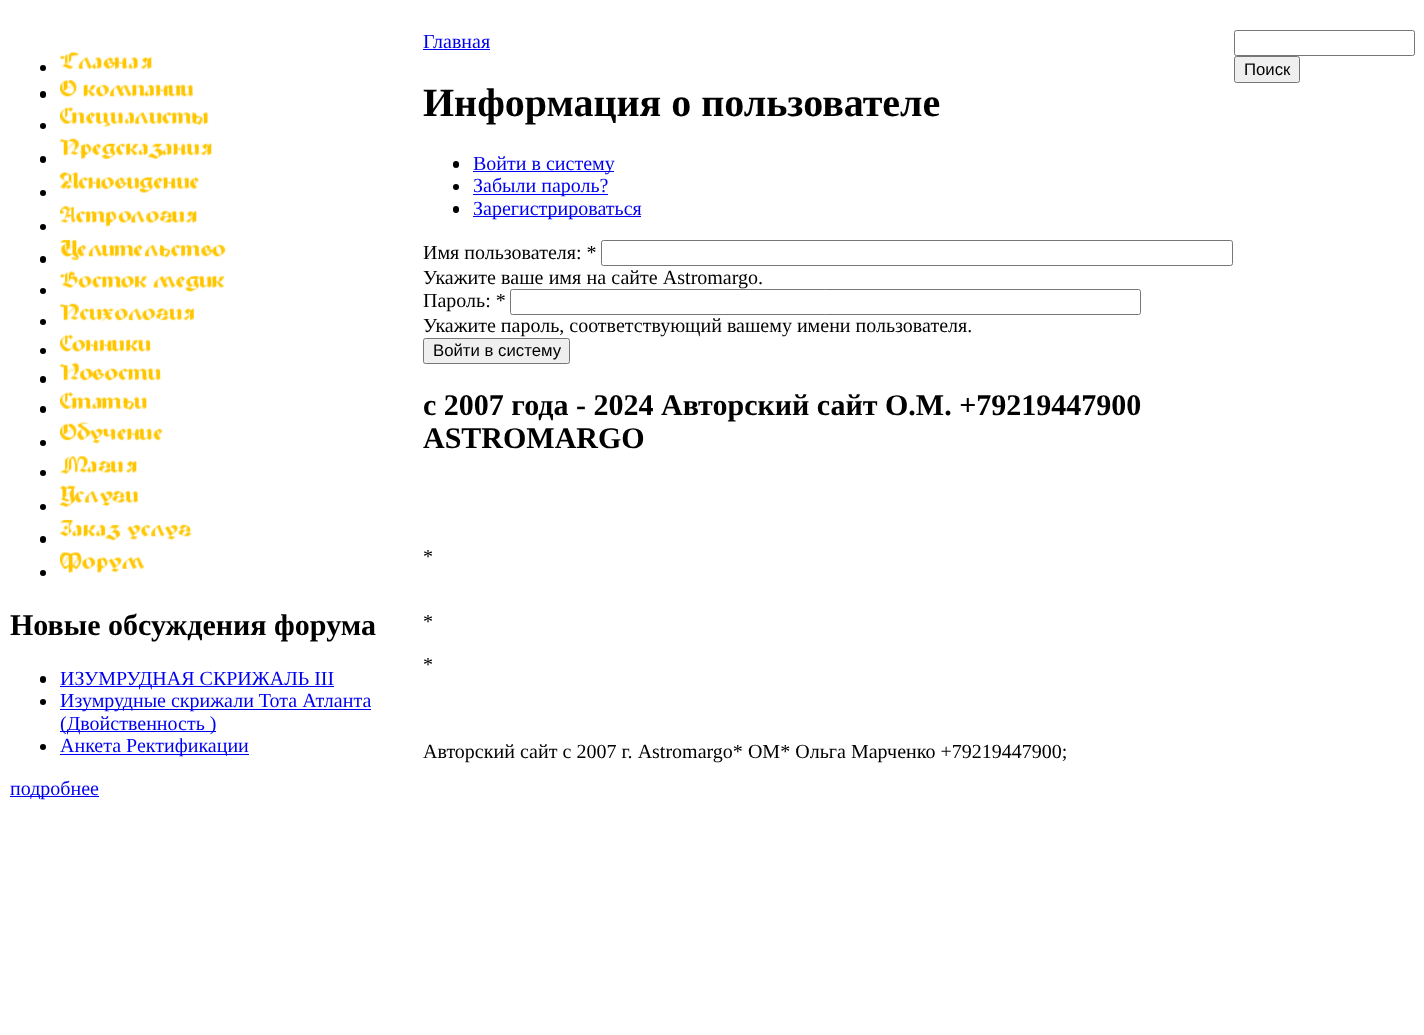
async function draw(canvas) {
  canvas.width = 1424
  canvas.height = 1035
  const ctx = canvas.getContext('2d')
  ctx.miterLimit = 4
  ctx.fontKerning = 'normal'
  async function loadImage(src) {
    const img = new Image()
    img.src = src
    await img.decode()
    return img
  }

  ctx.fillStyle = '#fff'
  ctx.fillRect(0, 0, 1424, 1035)
  ctx.font = '20px Liberation Serif'
  ctx.fillStyle = '#00e'
  ctx.fillText('Главная', 423, 48)
  ctx.fillRect(423, 49, 67, 1)
  ctx.font = 'bold 40px Liberation Serif'
  ctx.fillStyle = '#000'
  ctx.fillText('Информация о пользователе', 423, 116)
  ctx.beginPath()
  ctx.roundRect(453, 161, 6, 7, 3)
  ctx.fill()
  ctx.fillStyle = '#00e'
  ctx.fillRect(473, 171, 141, 1)
  ctx.font = '20px Liberation Serif'
  ctx.fillText('Войти в систему', 473, 170)
  ctx.fillStyle = '#000'
  ctx.beginPath()
  ctx.arc(456, 187, 3, 0, 2 * Math.PI)
  ctx.fill()
  ctx.fillStyle = '#00e'
  ctx.fillRect(473, 194, 135, 1)
  ctx.fillText('Забыли пароль?', 473, 192)
  ctx.fillStyle = '#000'
  ctx.beginPath()
  ctx.roundRect(453, 206, 6, 7, 3)
  ctx.fill()
  ctx.fillStyle = '#00e'
  ctx.fillRect(473, 216, 168, 1)
  ctx.fillText('Зарегистрироваться', 473, 215)
  ctx.fillStyle = '#000'
  ctx.fillText('Имя пользователя: *', 423, 259)
  ctx.beginPath()
  ctx.roundRect(601.5, 240.5, 631, 25, 2)
  ctx.strokeStyle = '#767676'
  ctx.stroke()
  ctx.wordSpacing = '0.25px'
  ctx.fillText('Укажите ваше имя на сайте Astromargo.', 423, 284)
  ctx.wordSpacing = '0px'
  ctx.fillText('Пароль: *', 423, 307)
  ctx.beginPath()
  ctx.roundRect(510.5, 289.5, 630, 25, 2)
  ctx.stroke()
  ctx.fillText('Укажите пароль, соответствующий вашему имени пользователя.', 423, 332)
  ctx.fillStyle = '#efefef'
  ctx.beginPath()
  ctx.roundRect(423.5, 338.5, 146, 25, 2)
  ctx.fill()
  ctx.stroke()
  ctx.font = '16.75px Liberation Sans'
  ctx.fillStyle = '#000'
  ctx.fillText('Войти в систему', 433, 356)
  ctx.font = 'bold 30px Liberation Serif'
  ctx.fillText('с 2007 года - 2024 Авторский сайт О.М. +79219447900', 423, 415)
  ctx.fillText('ASTROMARGO', 423, 448)
  ctx.font = '20px Liberation Serif'
  ctx.fillText('*', 423, 563)
  ctx.fillText('*', 423, 628)
  ctx.fillText('*', 423, 671)
  ctx.wordSpacing = '0.1px'
  ctx.fillText('Авторский сайт c 2007 г. Astromargo* OM* Ольга Марченко +79219447900;', 423, 758)
  ctx.beginPath()
  ctx.roundRect(1234.5, 30.5, 180, 25, 2)
  ctx.stroke()
  ctx.fillStyle = '#efefef'
  ctx.beginPath()
  ctx.roundRect(1234.5, 56.5, 65, 26, 2)
  ctx.fill()
  ctx.stroke()
  ctx.wordSpacing = '0px'
  ctx.font = '16.75px Liberation Sans'
  ctx.fillStyle = '#000'
  ctx.fillText('Поиск', 1244, 75)
  ctx.beginPath()
  ctx.arc(43, 68, 3, 0, 2 * Math.PI)
  ctx.fill()
  ctx.drawImage(await loadImage('image0.png'), 60, 52, 92, 17)
  ctx.beginPath()
  ctx.roundRect(40, 91, 6, 7, 3)
  ctx.fill()
  ctx.drawImage(await loadImage('image1.png'), 60, 79, 134, 18)
  ctx.beginPath()
  ctx.arc(43, 126, 3, 0, 2 * Math.PI)
  ctx.fill()
  ctx.drawImage(await loadImage('image2.png'), 60, 107, 149, 20)
  ctx.beginPath()
  ctx.roundRect(40, 156, 6, 7, 3)
  ctx.fill()
  ctx.drawImage(await loadImage('image3.png'), 60, 138, 152, 21)
  ctx.beginPath()
  ctx.arc(43, 193, 3, 0, 2 * Math.PI)
  ctx.fill()
  ctx.drawImage(await loadImage('image4.png'), 60, 172, 139, 21)
  ctx.beginPath()
  ctx.arc(43, 227, 3, 0, 2 * Math.PI)
  ctx.fill()
  ctx.drawImage(await loadImage('image5.png'), 60, 206, 137, 21)
  ctx.beginPath()
  ctx.roundRect(40, 256, 6, 7, 3)
  ctx.fill()
  ctx.drawImage(await loadImage('image6.png'), 60, 239, 166, 22)
  ctx.beginPath()
  ctx.arc(43, 291, 3, 0, 2 * Math.PI)
  ctx.fill()
  ctx.drawImage(await loadImage('image7.png'), 60, 271, 165, 21)
  ctx.beginPath()
  ctx.arc(43, 322, 3, 0, 2 * Math.PI)
  ctx.fill()
  ctx.drawImage(await loadImage('image8.png'), 60, 303, 134, 20)
  ctx.beginPath()
  ctx.arc(43, 351, 3, 0, 2 * Math.PI)
  ctx.fill()
  ctx.drawImage(await loadImage('image9.png'), 60, 334, 92, 18)
  ctx.beginPath()
  ctx.roundRect(40, 376, 6, 7, 3)
  ctx.fill()
  ctx.drawImage(await loadImage('image10.png'), 60, 362, 102, 19)
  ctx.beginPath()
  ctx.roundRect(40, 406, 6, 7, 3)
  ctx.fill()
  ctx.drawImage(await loadImage('image11.png'), 60, 392, 88, 19)
  ctx.beginPath()
  ctx.arc(43, 443, 3, 0, 2 * Math.PI)
  ctx.fill()
  ctx.drawImage(await loadImage('image12.png'), 60, 422, 103, 22)
  ctx.beginPath()
  ctx.arc(43, 473, 3, 0, 2 * Math.PI)
  ctx.fill()
  ctx.drawImage(await loadImage('image13.png'), 60, 456, 77, 18)
  ctx.beginPath()
  ctx.arc(43, 507, 3, 0, 2 * Math.PI)
  ctx.fill()
  ctx.drawImage(await loadImage('image14.png'), 60, 484, 79, 24)
  ctx.beginPath()
  ctx.roundRect(40, 536, 6, 7, 3)
  ctx.fill()
  ctx.drawImage(await loadImage('image15.png'), 60, 519, 132, 22)
  ctx.beginPath()
  ctx.arc(43, 573, 3, 0, 2 * Math.PI)
  ctx.fill()
  ctx.drawImage(await loadImage('image16.png'), 60, 552, 85, 21)
  ctx.font = 'bold 30px Liberation Serif'
  ctx.fillText('Новые обсуждения форума', 10, 635)
  ctx.beginPath()
  ctx.roundRect(40, 676, 6, 7, 3)
  ctx.fill()
  ctx.fillStyle = '#00e'
  ctx.fillRect(60, 686, 274, 1)
  ctx.font = '20px Liberation Serif'
  ctx.fillText('ИЗУМРУДНАЯ СКРИЖАЛЬ III', 60, 685)
  ctx.fillStyle = '#000'
  ctx.beginPath()
  ctx.arc(43, 702, 3, 0, 2 * Math.PI)
  ctx.fill()
  ctx.fillStyle = '#00e'
  ctx.fillRect(60, 709, 311, 1)
  ctx.fillText('Изумрудные скрижали Тота Атланта', 60, 707)
  ctx.fillRect(60, 731, 156, 1)
  ctx.fillText('(Двойственность )', 60, 730)
  ctx.fillStyle = '#000'
  ctx.beginPath()
  ctx.arc(43, 747, 3, 0, 2 * Math.PI)
  ctx.fill()
  ctx.fillStyle = '#00e'
  ctx.fillRect(60, 754, 189, 1)
  ctx.fillText('Анкета Ректификации', 60, 752)
  ctx.fillRect(10, 796, 89, 1)
  ctx.fillText('подробнее', 10, 795)
}

draw(document.querySelector('canvas'))
